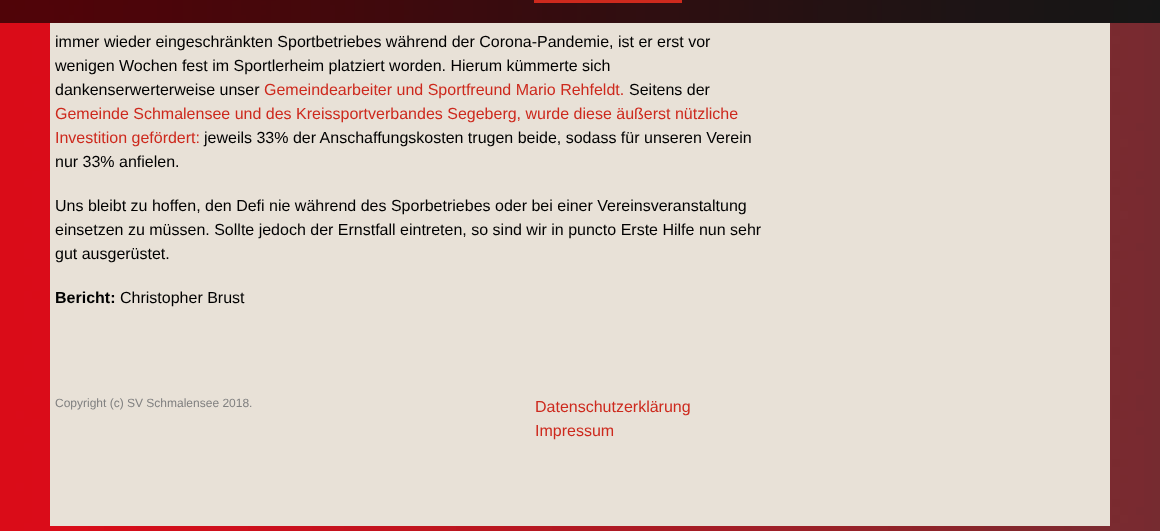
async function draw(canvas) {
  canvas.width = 1160
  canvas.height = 531
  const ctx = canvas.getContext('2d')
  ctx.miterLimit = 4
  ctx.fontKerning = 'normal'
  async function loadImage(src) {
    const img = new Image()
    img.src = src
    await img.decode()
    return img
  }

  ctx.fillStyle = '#fff'
  ctx.fillRect(0, 0, 1160, 531)
  ctx.drawImage(await loadImage('image0.png'), 0, 22, 1160, 509)
  ctx.fillStyle = '#e8e1d7'
  ctx.fillRect(50, 22, 1060, 504)
  ctx.drawImage(await loadImage('image1.png'), 0, 0, 1160, 23)
  ctx.fillStyle = '#000000a1'
  ctx.fillRect(0, 0, 1160, 23)
  ctx.fillStyle = '#cd291d'
  ctx.fillRect(534, 0, 148, 3)
  ctx.font = '16px Liberation Sans'
  ctx.fillStyle = '#000'
  ctx.fillText('immer wieder eingeschränkten Sportbetriebes während der Corona-Pandemie, ist er erst vor', 55, 47)
  ctx.fillText('wenigen Wochen fest im Sportlerheim platziert worden. Hierum kümmerte sich', 55, 71)
  ctx.fillText('dankenserwerterweise unser', 55, 95)
  ctx.fillStyle = '#cd291d'
  ctx.fillText('Gemeindearbeiter und Sportfreund Mario Rehfeldt.', 264, 95)
  ctx.fillStyle = '#000'
  ctx.fillText('Seitens der', 629, 95)
  ctx.fillStyle = '#cd291d'
  ctx.fillText('Gemeinde Schmalensee und des Kreissportverbandes Segeberg, wurde diese äußerst nützliche', 55, 119)
  ctx.fillText('Investition gefördert:', 55, 143)
  ctx.fillStyle = '#000'
  ctx.fillText('jeweils 33% der Anschaffungskosten trugen beide, sodass für unseren Verein', 204, 143)
  ctx.fillText('nur 33% anfielen.', 55, 167)
  ctx.fillText('Uns bleibt zu hoffen, den Defi nie während des Sporbetriebes oder bei einer Vereinsveranstaltung', 55, 211)
  ctx.fillText('einsetzen zu müssen. Sollte jedoch der Ernstfall eintreten, so sind wir in puncto Erste Hilfe nun sehr', 55, 235)
  ctx.fillText('gut ausgerüstet.', 55, 259)
  ctx.font = 'bold 16px Liberation Sans'
  ctx.fillText('Bericht:', 55, 303)
  ctx.font = '16px Liberation Sans'
  ctx.fillText('Christopher Brust', 120, 303)
  ctx.font = '12px Liberation Sans'
  ctx.fillStyle = '#808080'
  ctx.fillText('Copyright (c) SV Schmalensee 2018.', 55, 407)
  ctx.font = '16px Liberation Sans'
  ctx.fillStyle = '#cd291d'
  ctx.fillText('Datenschutzerklärung', 535, 412)
  ctx.fillText('Impressum', 535, 436)
}

draw(document.querySelector('canvas'))
